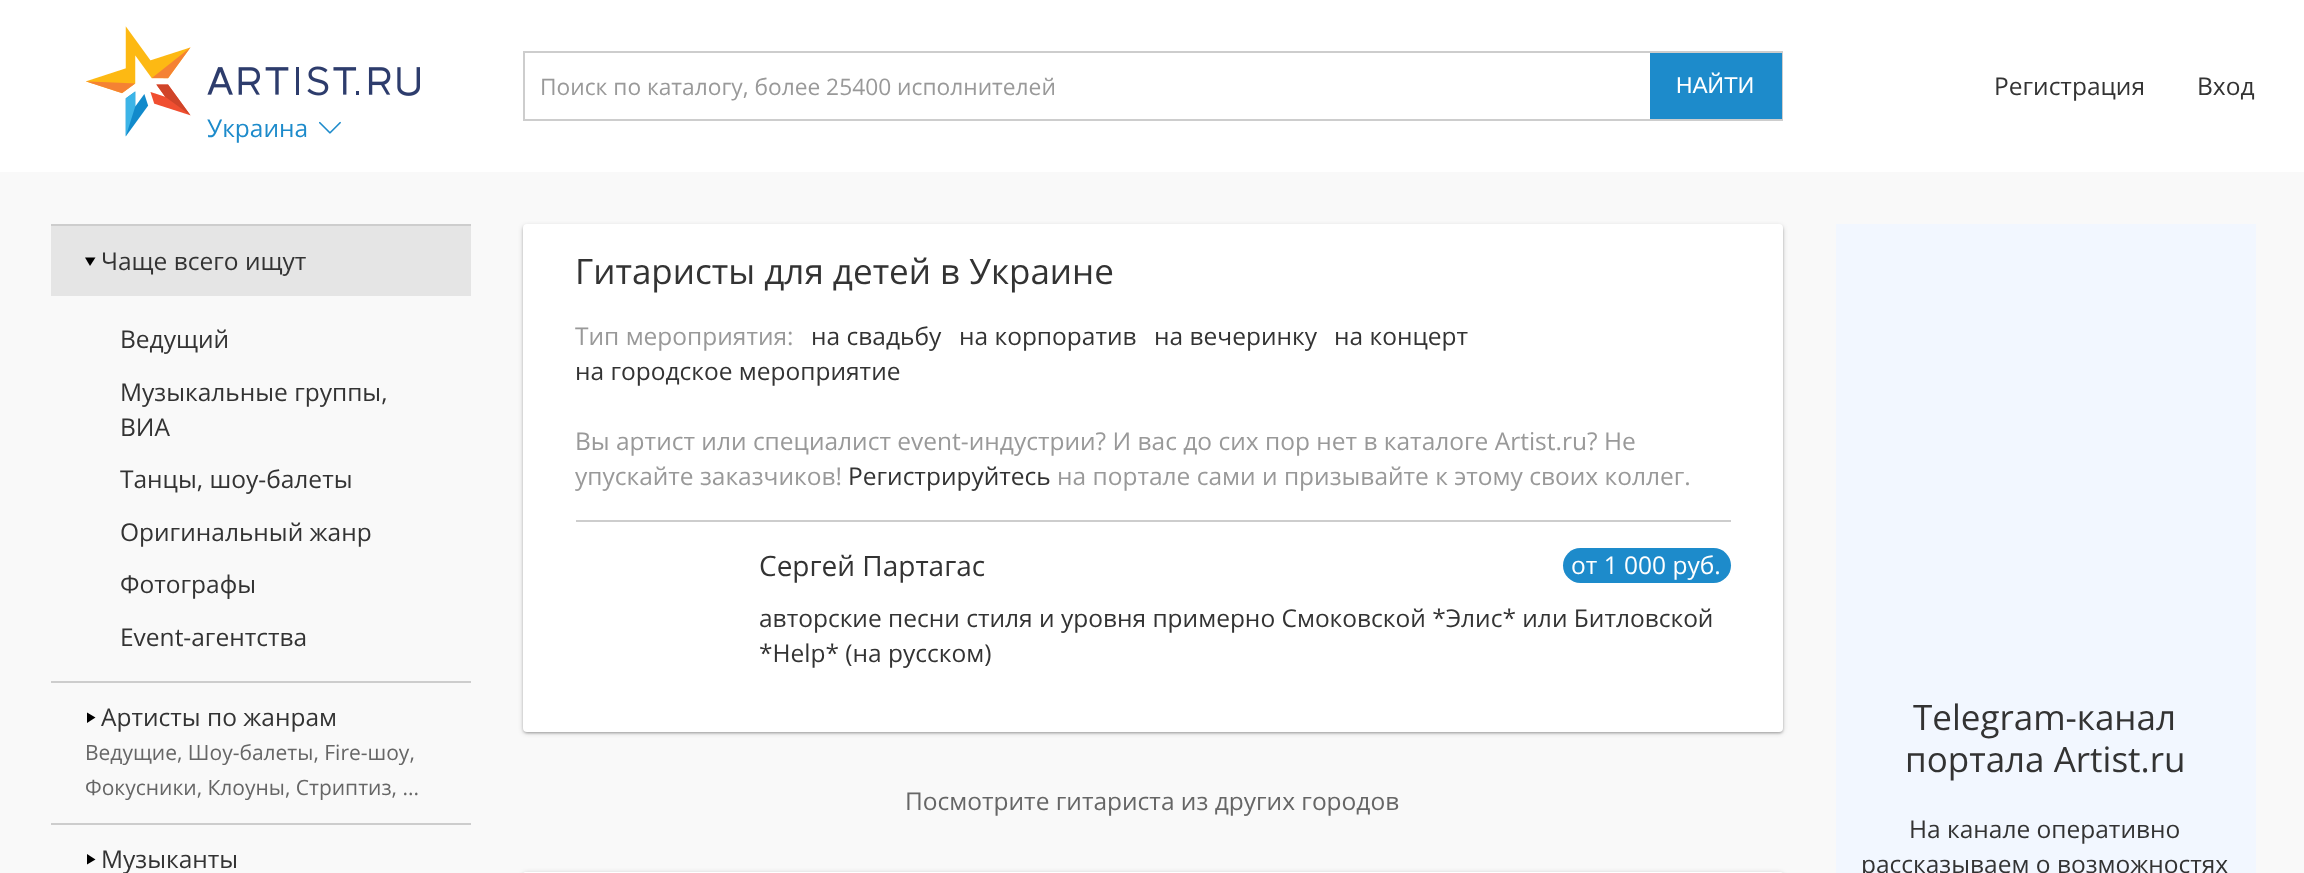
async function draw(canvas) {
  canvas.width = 2304
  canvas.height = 873
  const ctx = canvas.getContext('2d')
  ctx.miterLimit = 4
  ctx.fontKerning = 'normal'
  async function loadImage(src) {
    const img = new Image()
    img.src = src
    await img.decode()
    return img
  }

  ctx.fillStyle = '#f9f9f9'
  ctx.fillRect(0, 0, 2304, 873)
  ctx.fillStyle = '#fff'
  ctx.fillRect(0, 0, 2304, 172)
  ctx.strokeStyle = '#cdcdcd'
  ctx.lineWidth = 2
  ctx.strokeRect(524, 52, 1258, 68)
  ctx.font = '22.75px Open Sans'
  ctx.fillStyle = '#999'
  ctx.fillText('Поиск по каталогу, более 25400 исполнителей', 540, 95)
  ctx.fillStyle = '#1d8bcb'
  ctx.fillRect(1650, 53, 132, 66)
  ctx.font = '22.75px Liberation Sans'
  ctx.fillStyle = '#fff'
  ctx.fillText('НАЙТИ', 1676, 93)
  ctx.font = '24.5px Open Sans'
  ctx.fillStyle = '#333'
  ctx.fillText('Регистрация', 1994, 95)
  ctx.fillText('Вход', 2197, 95)
  ctx.drawImage(await loadImage('image0.png'), 86, 26, 334, 111)
  ctx.fillStyle = '#1d8bcb'
  ctx.fillText('Украина', 207, 137)
  ctx.drawImage(await loadImage('image1.png'), 319, 121, 22, 13)
  ctx.fillStyle = '#cdcdcd'
  ctx.fillRect(51, 224, 420, 2)
  ctx.fillStyle = '#e5e5e5'
  ctx.fillRect(51, 226, 420, 70)
  ctx.fillStyle = '#000'
  ctx.beginPath()
  ctx.moveTo(95.5, 257.5)
  ctx.lineTo(85, 257.5)
  ctx.lineTo(90, 266)
  ctx.closePath()
  ctx.fill()
  ctx.fillStyle = '#333'
  ctx.fillText('Чаще всего ищут', 101, 270)
  ctx.fillText('Ведущий', 120, 348)
  ctx.fillText('Музыкальные группы,', 120, 401)
  ctx.fillText('ВИА', 120, 436)
  ctx.fillText('Танцы, шоу-балеты', 120, 488)
  ctx.fillText('Оригинальный жанр', 120, 541)
  ctx.fillText('Фотографы', 120, 593)
  ctx.fillText('Event-агентства', 120, 646)
  ctx.fillStyle = '#cdcdcd'
  ctx.fillRect(51, 681, 420, 2)
  ctx.fillStyle = '#000'
  ctx.beginPath()
  ctx.moveTo(87, 712.5)
  ctx.lineTo(87, 723)
  ctx.lineTo(95.5, 717.5)
  ctx.closePath()
  ctx.fill()
  ctx.fillStyle = '#333'
  ctx.fillText('Артисты по жанрам', 101, 726)
  ctx.font = '21px Open Sans'
  ctx.fillStyle = '#666'
  ctx.fillText('Ведущие, Шоу-балеты, Fire-шоу,', 85, 760)
  ctx.fillText('Фокусники, Клоуны, Стриптиз, ...', 85, 795)
  ctx.fillStyle = '#cdcdcd'
  ctx.fillRect(51, 823, 420, 2)
  ctx.fillStyle = '#000'
  ctx.beginPath()
  ctx.moveTo(87, 854)
  ctx.lineTo(87, 864.5)
  ctx.lineTo(95.5, 859.5)
  ctx.closePath()
  ctx.fill()
  ctx.font = '24.5px Open Sans'
  ctx.fillStyle = '#333'
  ctx.fillText('Музыканты', 101, 868)
  ctx.fillStyle = '#0000001f'
  ctx.filter = 'blur(1px)'
  ctx.beginPath()
  ctx.roundRect(525, 229, 1257, 504, 2)
  ctx.fill()
  ctx.filter = 'none'
  ctx.fillStyle = '#00000024'
  ctx.filter = 'blur(1px)'
  ctx.beginPath()
  ctx.roundRect(523, 226, 1260, 507, 4)
  ctx.fill()
  ctx.filter = 'none'
  ctx.fillStyle = '#00000033'
  ctx.filter = 'blur(2.5px)'
  ctx.beginPath()
  ctx.roundRect(523, 226, 1260, 507, 4)
  ctx.fill()
  ctx.filter = 'none'
  ctx.fillStyle = '#fff'
  ctx.beginPath()
  ctx.roundRect(523, 224, 1260, 508, 4)
  ctx.fill()
  ctx.fillStyle = '#cdcdcd'
  ctx.fillRect(576, 520, 1155, 2)
  ctx.font = '35px Open Sans'
  ctx.fillStyle = '#333'
  ctx.fillText('Гитаристы для детей в Украине', 575, 284)
  ctx.font = '24.5px Open Sans'
  ctx.fillStyle = '#999'
  ctx.fillText('Тип мероприятия:', 575, 345)
  ctx.fillStyle = '#333'
  ctx.fillText('на свадьбу', 811, 345)
  ctx.fillText('на корпоратив', 959, 345)
  ctx.fillText('на вечеринку', 1154, 345)
  ctx.fillText('на концерт', 1334, 345)
  ctx.fillText('на городское мероприятие', 575, 380)
  ctx.fillStyle = '#999'
  ctx.fillText('Вы артист или специалист event-индустрии? И вас до сих пор нет в каталоге Artist.ru? Не', 575, 450)
  ctx.fillText('упускайте заказчиков!', 575, 485)
  ctx.fillStyle = '#333'
  ctx.fillText('Регистрируйтесь', 848, 485)
  ctx.fillStyle = '#999'
  ctx.fillText('на портале сами и призывайте к этому своих коллег.', 1057, 485)
  ctx.font = '28px Open Sans'
  ctx.fillStyle = '#333'
  ctx.fillText('Сергей Партагас', 759, 576)
  ctx.fillStyle = '#1d8bcb'
  ctx.beginPath()
  ctx.roundRect(1563, 548, 168, 35, 17.5)
  ctx.fill()
  ctx.font = '24.5px Open Sans'
  ctx.fillStyle = '#fff'
  ctx.fillText('от 1 000 руб.', 1571, 574)
  ctx.save()
  ctx.beginPath()
  ctx.rect(760, 600, 971, 70)
  ctx.clip()
  ctx.fillStyle = '#333'
  ctx.fillText('авторские песни стиля и уровня примерно Смоковской *Элис* или Битловской', 759, 627)
  ctx.restore()
  ctx.fillStyle = '#333'
  ctx.fillText('*Help* (на русском)', 759, 662)
  ctx.fillStyle = '#666'
  ctx.fillText('Посмотрите гитариста из других городов', 905, 810)
  ctx.fillStyle = '#00000033'
  ctx.filter = 'blur(2.5px)'
  ctx.beginPath()
  ctx.roundRect(523, 873, 1260, 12, 4)
  ctx.fill()
  ctx.filter = 'none'
  ctx.fillStyle = '#fff'
  ctx.beginPath()
  ctx.roundRect(523, 872, 1260, 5, 4)
  ctx.fill()
  ctx.fillStyle = '#f2f7ff'
  ctx.fillRect(1836, 224, 420, 649)
  ctx.font = '35px Open Sans'
  ctx.fillStyle = '#333'
  ctx.fillText('Telegram-канал', 1913, 730)
  ctx.fillText('портала Artist.ru', 1905, 772)
  ctx.font = '24.5px Open Sans'
  ctx.fillText('На канале оперативно', 1909, 838)
  ctx.fillText('рассказываем о возможностях', 1861, 873)
}

draw(document.querySelector('canvas'))
